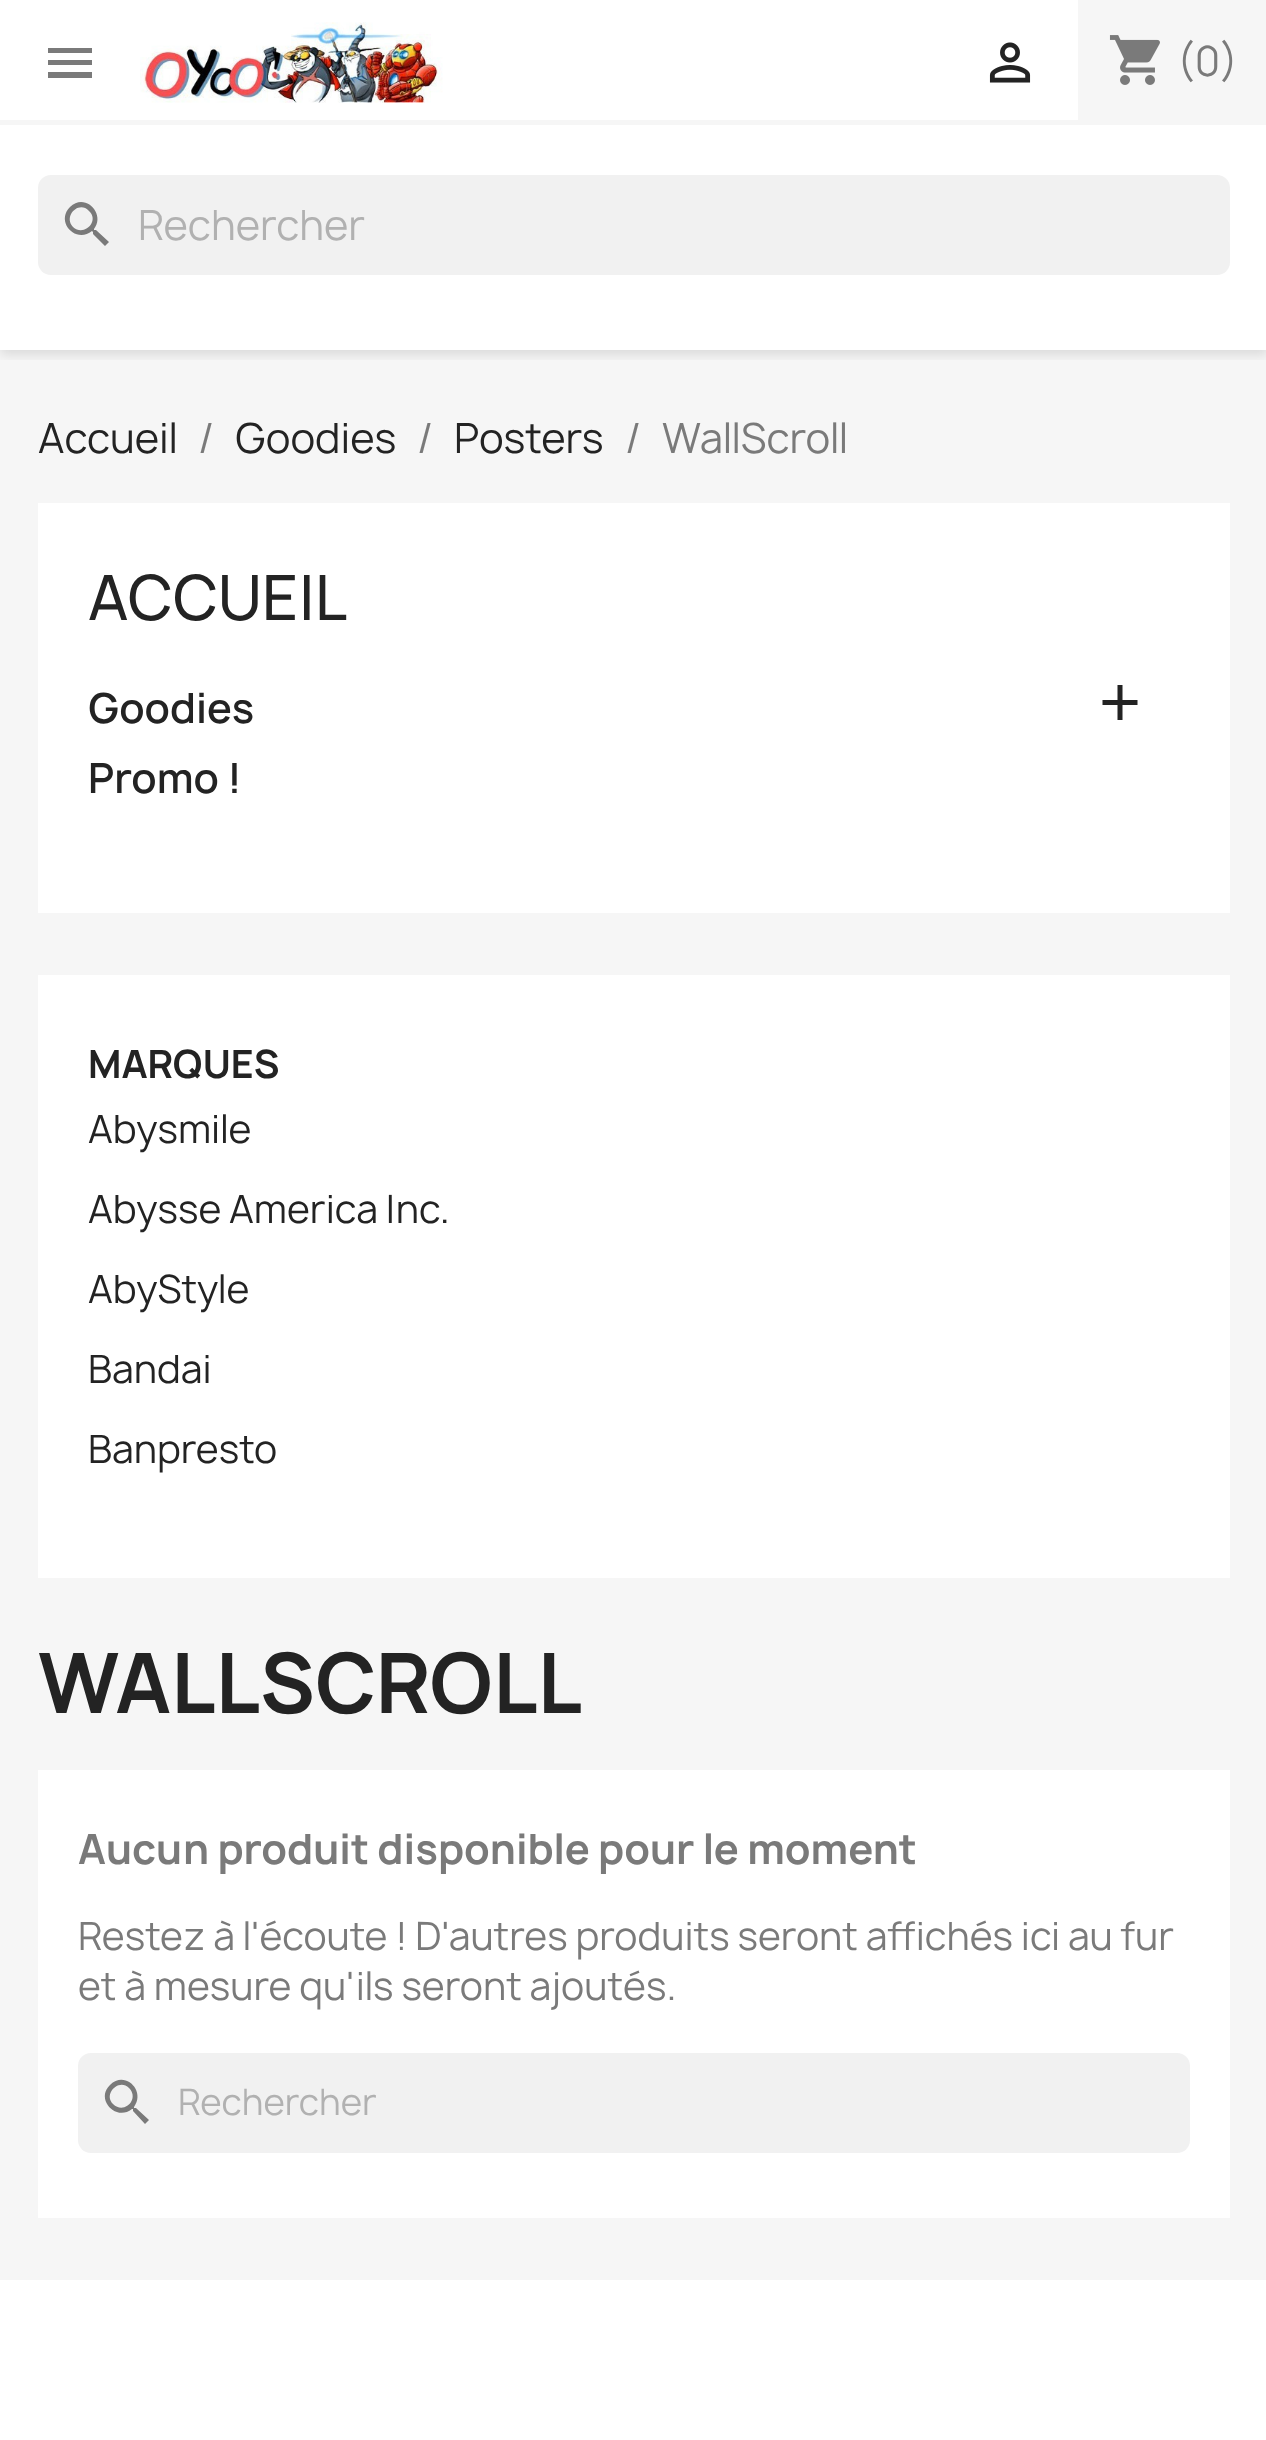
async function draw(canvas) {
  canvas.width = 1266
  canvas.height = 2440
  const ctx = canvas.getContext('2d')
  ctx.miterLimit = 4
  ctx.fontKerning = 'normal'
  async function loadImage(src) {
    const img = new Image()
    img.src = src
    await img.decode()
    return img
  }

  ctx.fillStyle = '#fff'
  ctx.fillRect(0, 0, 1266, 2440)
  ctx.fillStyle = '#f6f6f6'
  ctx.fillRect(0, 350, 1266, 1930)
  ctx.save()
  ctx.beginPath()
  ctx.rect(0, 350, 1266, 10)
  ctx.clip()
  ctx.fillStyle = '#0000001c'
  ctx.filter = 'blur(6px)'
  ctx.beginPath()
  ctx.rect(0, 5, 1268, 350)
  ctx.fill()
  ctx.filter = 'none'
  ctx.restore()
  ctx.fillRect(0, 120, 1266, 5)
  ctx.fillStyle = '#7a7a7a'
  ctx.beginPath()
  ctx.moveTo(48, 48)
  ctx.lineTo(92, 48)
  ctx.lineTo(92, 53)
  ctx.lineTo(48, 53)
  ctx.closePath()
  ctx.moveTo(48, 65)
  ctx.lineTo(48, 60)
  ctx.lineTo(92, 60)
  ctx.lineTo(92, 65)
  ctx.closePath()
  ctx.moveTo(48, 78)
  ctx.lineTo(48, 72)
  ctx.lineTo(92, 72)
  ctx.lineTo(92, 78)
  ctx.closePath()
  ctx.fill()
  ctx.drawImage(await loadImage('image0.png'), 140, 22, 303, 81)
  ctx.drawImage(await loadImage('image1.png'), 989, 42, 42, 41)
  ctx.fillStyle = '#f6f6f6'
  ctx.fillRect(1078, 0, 188, 120)
  ctx.drawImage(await loadImage('image2.png'), 1109, 35, 51, 50)
  ctx.font = '40px Manrope'
  ctx.fillStyle = '#7a7a7a'
  ctx.fillText('(0)', 1177, 76)
  ctx.fillStyle = '#f1f1f1'
  ctx.beginPath()
  ctx.roundRect(38, 175, 1192, 100, 13)
  ctx.fill()
  ctx.fillStyle = '#7a7a7a'
  ctx.beginPath()
  ctx.moveTo(73, 227)
  ctx.bezierCurveTo(84, 237, 100, 221, 89, 211)
  ctx.bezierCurveTo(79, 200, 63, 216, 73, 227)
  ctx.closePath()
  ctx.moveTo(96, 230)
  ctx.lineTo(109, 242)
  ctx.lineTo(105, 246)
  ctx.lineTo(93, 234)
  ctx.lineTo(93, 232)
  ctx.lineTo(92, 231)
  ctx.bezierCurveTo(76, 244, 55, 222, 70, 207)
  ctx.bezierCurveTo(85, 192, 106, 214, 94, 229)
  ctx.lineTo(94, 230)
  ctx.closePath()
  ctx.fill()
  ctx.fillStyle = '#b1b1b1'
  ctx.fillText('Rechercher', 138, 240)
  ctx.fillStyle = '#232323'
  ctx.fillText('Accueil', 38, 453)
  ctx.fillStyle = '#7a7a7a'
  ctx.fillText('/', 198, 453)
  ctx.fillStyle = '#232323'
  ctx.fillText('Goodies', 235, 453)
  ctx.fillStyle = '#7a7a7a'
  ctx.fillText('/', 417, 453)
  ctx.fillStyle = '#232323'
  ctx.fillText('Posters', 454, 453)
  ctx.fillStyle = '#7a7a7a'
  ctx.fillText('/', 625, 453)
  ctx.fillText('WallScroll', 662, 453)
  ctx.fillStyle = '#fff'
  ctx.fillRect(38, 503, 1192, 410)
  ctx.font = '500 60px Manrope'
  ctx.fillStyle = '#232323'
  ctx.fillText('ACCUEIL', 88, 620)
  ctx.font = '600 40px Manrope'
  ctx.fillText('Goodies', 88, 723)
  ctx.beginPath()
  ctx.moveTo(1137.5, 705)
  ctx.lineTo(1122.5, 705)
  ctx.lineTo(1122.5, 720)
  ctx.lineTo(1117.5, 720)
  ctx.lineTo(1117.5, 705)
  ctx.lineTo(1102.5, 705)
  ctx.lineTo(1102.5, 700)
  ctx.lineTo(1117.5, 700)
  ctx.lineTo(1117.5, 685)
  ctx.lineTo(1122.5, 685)
  ctx.lineTo(1122.5, 700)
  ctx.lineTo(1137.5, 700)
  ctx.closePath()
  ctx.fill()
  ctx.fillText('Promo !', 88, 793)
  ctx.fillStyle = '#fff'
  ctx.fillRect(38, 975, 1192, 603)
  ctx.font = 'bold 37.5px Manrope'
  ctx.fillStyle = '#232323'
  ctx.fillText('MARQUES', 88, 1078)
  ctx.font = '37.5px Manrope'
  ctx.fillText('Abysmile', 88, 1143)
  ctx.fillText('Abysse America Inc.', 88, 1223)
  ctx.fillText('AbyStyle', 88, 1303)
  ctx.fillText('Bandai', 88, 1383)
  ctx.fillText('Banpresto', 88, 1463)
  ctx.font = 'bold 80px Manrope'
  ctx.fillText('WALLSCROLL', 38, 1713)
  ctx.fillStyle = '#fff'
  ctx.fillRect(38, 1770, 1192, 448)
  ctx.font = 'bold 40px Manrope'
  ctx.fillStyle = '#7a7a7a'
  ctx.fillText('Aucun produit disponible pour le moment', 78, 1864)
  ctx.font = '37.5px Manrope'
  ctx.fillText('Restez à l\'écoute ! D\'autres produits seront affichés ici au fur', 78, 1950)
  ctx.fillText('et à mesure qu\'ils seront ajoutés.', 78, 2000)
  ctx.fillStyle = '#f1f1f1'
  ctx.beginPath()
  ctx.roundRect(78, 2053, 1112, 100, 13)
  ctx.fill()
  ctx.fillStyle = '#7a7a7a'
  ctx.beginPath()
  ctx.moveTo(113, 2104)
  ctx.bezierCurveTo(124, 2115, 140, 2099, 129, 2088)
  ctx.bezierCurveTo(119, 2078, 103, 2094, 113, 2104)
  ctx.closePath()
  ctx.moveTo(136, 2108)
  ctx.lineTo(149, 2120)
  ctx.lineTo(145, 2124)
  ctx.lineTo(133, 2111)
  ctx.lineTo(133, 2109)
  ctx.lineTo(132, 2109)
  ctx.bezierCurveTo(116, 2122, 95, 2099, 110, 2085)
  ctx.bezierCurveTo(125, 2070, 146, 2091, 134, 2107)
  ctx.lineTo(134, 2108)
  ctx.closePath()
  ctx.fill()
  ctx.font = '35px Manrope'
  ctx.fillStyle = '#b1b1b1'
  ctx.fillText('Rechercher', 178, 2115)
}

draw(document.querySelector('canvas'))
